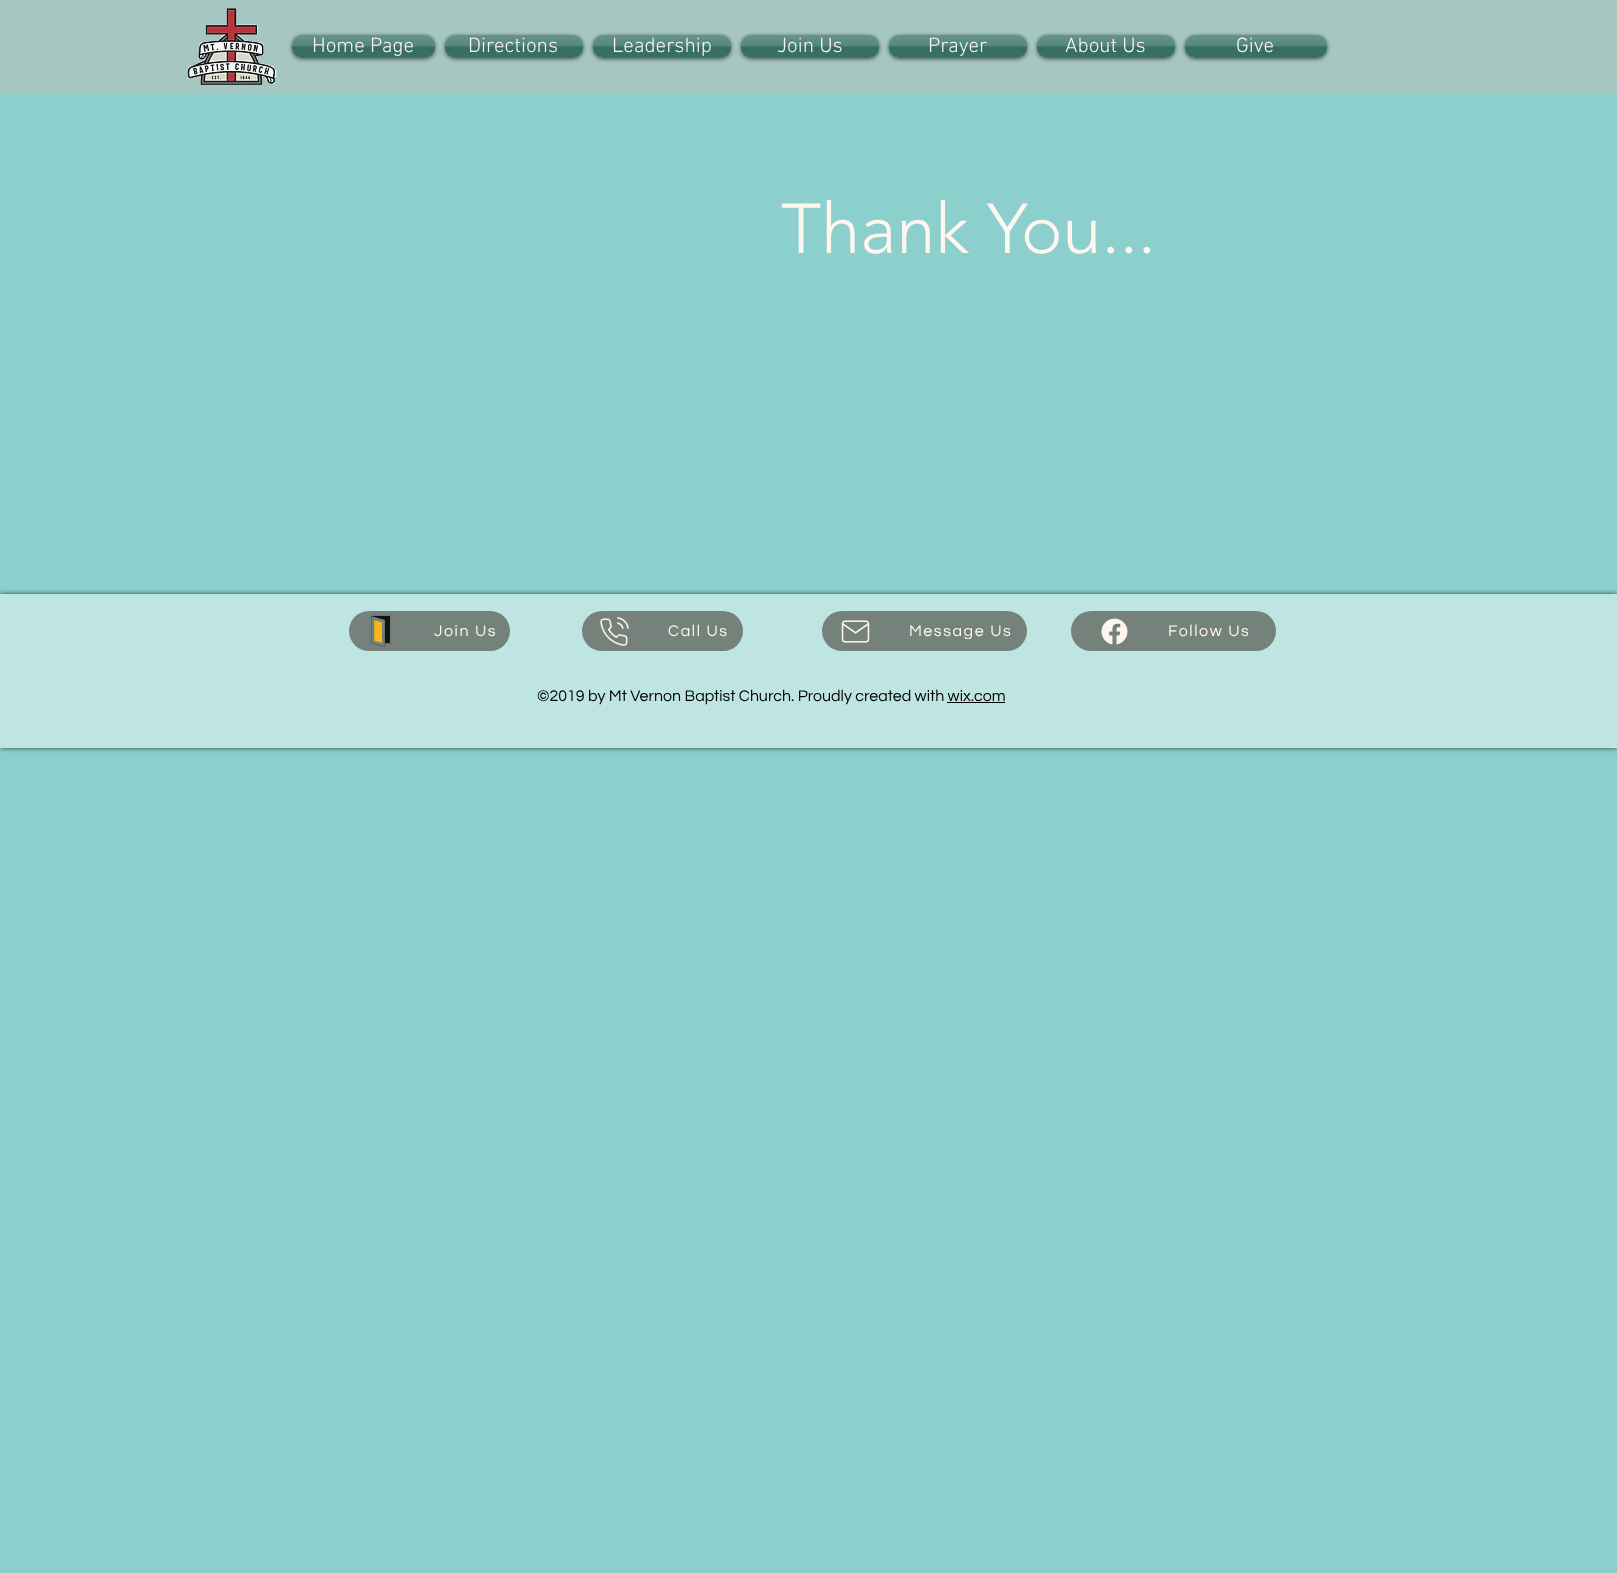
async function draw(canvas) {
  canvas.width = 1617
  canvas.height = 1573
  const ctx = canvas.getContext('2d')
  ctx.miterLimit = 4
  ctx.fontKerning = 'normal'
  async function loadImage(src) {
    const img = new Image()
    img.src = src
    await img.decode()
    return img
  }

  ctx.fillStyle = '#8bd0cd'
  ctx.fillRect(0, 0, 1617, 1573)
  ctx.fillStyle = '#a6c7c1'
  ctx.fillRect(0, 0, 1617, 94)
  ctx.drawImage(await loadImage('image0.png'), 187, 7, 90, 78)
  ctx.save()
  ctx.beginPath()
  ctx.moveTo(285, 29)
  ctx.lineTo(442, 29)
  ctx.lineTo(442, 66)
  ctx.lineTo(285, 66)
  ctx.closePath()
  ctx.moveTo(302, 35)
  ctx.lineTo(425, 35)
  ctx.bezierCurveTo(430.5, 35, 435, 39.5, 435, 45)
  ctx.lineTo(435, 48)
  ctx.bezierCurveTo(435, 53.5, 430.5, 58, 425, 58)
  ctx.lineTo(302, 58)
  ctx.bezierCurveTo(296.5, 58, 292, 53.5, 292, 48)
  ctx.lineTo(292, 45)
  ctx.bezierCurveTo(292, 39.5, 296.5, 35, 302, 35)
  ctx.closePath()
  ctx.clip('evenodd')
  ctx.fillStyle = '#00000099'
  ctx.filter = 'blur(2px)'
  ctx.beginPath()
  ctx.roundRect(292, 36, 143, 23, 10)
  ctx.fill()
  ctx.filter = 'none'
  ctx.restore()
  ctx.fillStyle = '#014b3fa6'
  ctx.beginPath()
  ctx.roundRect(292, 35, 143, 23, 10)
  ctx.fill()
  ctx.drawImage(await loadImage('image1.png'), 292, 35, 143, 23)
  ctx.font = '300 21px "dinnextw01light"'
  ctx.fillStyle = '#fff6ef'
  ctx.fillText('Home Page', 312, 52)
  ctx.save()
  ctx.beginPath()
  ctx.moveTo(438, 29)
  ctx.lineTo(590, 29)
  ctx.lineTo(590, 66)
  ctx.lineTo(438, 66)
  ctx.closePath()
  ctx.moveTo(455, 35)
  ctx.lineTo(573, 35)
  ctx.bezierCurveTo(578.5, 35, 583, 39.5, 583, 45)
  ctx.lineTo(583, 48)
  ctx.bezierCurveTo(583, 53.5, 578.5, 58, 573, 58)
  ctx.lineTo(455, 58)
  ctx.bezierCurveTo(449.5, 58, 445, 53.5, 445, 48)
  ctx.lineTo(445, 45)
  ctx.bezierCurveTo(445, 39.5, 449.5, 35, 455, 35)
  ctx.closePath()
  ctx.clip('evenodd')
  ctx.fillStyle = '#00000099'
  ctx.filter = 'blur(2px)'
  ctx.beginPath()
  ctx.roundRect(445, 36, 138, 23, 10)
  ctx.fill()
  ctx.filter = 'none'
  ctx.restore()
  ctx.fillStyle = '#014b3fa6'
  ctx.beginPath()
  ctx.roundRect(445, 35, 138, 23, 10)
  ctx.fill()
  ctx.drawImage(await loadImage('image2.png'), 445, 35, 138, 23)
  ctx.fillStyle = '#fff6ef'
  ctx.fillText('Directions', 468, 52)
  ctx.save()
  ctx.beginPath()
  ctx.moveTo(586, 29)
  ctx.lineTo(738, 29)
  ctx.lineTo(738, 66)
  ctx.lineTo(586, 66)
  ctx.closePath()
  ctx.moveTo(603, 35)
  ctx.lineTo(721, 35)
  ctx.bezierCurveTo(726.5, 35, 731, 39.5, 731, 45)
  ctx.lineTo(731, 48)
  ctx.bezierCurveTo(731, 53.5, 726.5, 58, 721, 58)
  ctx.lineTo(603, 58)
  ctx.bezierCurveTo(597.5, 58, 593, 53.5, 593, 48)
  ctx.lineTo(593, 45)
  ctx.bezierCurveTo(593, 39.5, 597.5, 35, 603, 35)
  ctx.closePath()
  ctx.clip('evenodd')
  ctx.fillStyle = '#00000099'
  ctx.filter = 'blur(2px)'
  ctx.beginPath()
  ctx.roundRect(593, 36, 138, 23, 10)
  ctx.fill()
  ctx.filter = 'none'
  ctx.restore()
  ctx.fillStyle = '#014b3fa6'
  ctx.beginPath()
  ctx.roundRect(593, 35, 138, 23, 10)
  ctx.fill()
  ctx.drawImage(await loadImage('image3.png'), 593, 35, 138, 23)
  ctx.fillStyle = '#fff6ef'
  ctx.fillText('Leadership', 612, 52)
  ctx.save()
  ctx.beginPath()
  ctx.moveTo(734, 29)
  ctx.lineTo(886, 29)
  ctx.lineTo(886, 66)
  ctx.lineTo(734, 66)
  ctx.closePath()
  ctx.moveTo(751, 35)
  ctx.lineTo(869, 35)
  ctx.bezierCurveTo(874.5, 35, 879, 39.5, 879, 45)
  ctx.lineTo(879, 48)
  ctx.bezierCurveTo(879, 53.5, 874.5, 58, 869, 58)
  ctx.lineTo(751, 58)
  ctx.bezierCurveTo(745.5, 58, 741, 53.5, 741, 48)
  ctx.lineTo(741, 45)
  ctx.bezierCurveTo(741, 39.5, 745.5, 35, 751, 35)
  ctx.closePath()
  ctx.clip('evenodd')
  ctx.fillStyle = '#00000099'
  ctx.filter = 'blur(2px)'
  ctx.beginPath()
  ctx.roundRect(741, 36, 138, 23, 10)
  ctx.fill()
  ctx.filter = 'none'
  ctx.restore()
  ctx.fillStyle = '#014b3fa6'
  ctx.beginPath()
  ctx.roundRect(741, 35, 138, 23, 10)
  ctx.fill()
  ctx.drawImage(await loadImage('image2.png'), 741, 35, 138, 23)
  ctx.fillStyle = '#fff6ef'
  ctx.fillText('Join Us', 777, 52)
  ctx.save()
  ctx.beginPath()
  ctx.moveTo(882, 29)
  ctx.lineTo(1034, 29)
  ctx.lineTo(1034, 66)
  ctx.lineTo(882, 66)
  ctx.closePath()
  ctx.moveTo(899, 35)
  ctx.lineTo(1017, 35)
  ctx.bezierCurveTo(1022.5, 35, 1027, 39.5, 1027, 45)
  ctx.lineTo(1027, 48)
  ctx.bezierCurveTo(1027, 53.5, 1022.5, 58, 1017, 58)
  ctx.lineTo(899, 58)
  ctx.bezierCurveTo(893.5, 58, 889, 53.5, 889, 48)
  ctx.lineTo(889, 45)
  ctx.bezierCurveTo(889, 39.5, 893.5, 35, 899, 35)
  ctx.closePath()
  ctx.clip('evenodd')
  ctx.fillStyle = '#00000099'
  ctx.filter = 'blur(2px)'
  ctx.beginPath()
  ctx.roundRect(889, 36, 138, 23, 10)
  ctx.fill()
  ctx.filter = 'none'
  ctx.restore()
  ctx.fillStyle = '#014b3fa6'
  ctx.beginPath()
  ctx.roundRect(889, 35, 138, 23, 10)
  ctx.fill()
  ctx.drawImage(await loadImage('image2.png'), 889, 35, 138, 23)
  ctx.fillStyle = '#fff6ef'
  ctx.fillText('Prayer', 928, 52)
  ctx.save()
  ctx.beginPath()
  ctx.moveTo(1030, 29)
  ctx.lineTo(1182, 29)
  ctx.lineTo(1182, 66)
  ctx.lineTo(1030, 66)
  ctx.closePath()
  ctx.moveTo(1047, 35)
  ctx.lineTo(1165, 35)
  ctx.bezierCurveTo(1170.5, 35, 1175, 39.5, 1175, 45)
  ctx.lineTo(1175, 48)
  ctx.bezierCurveTo(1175, 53.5, 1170.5, 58, 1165, 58)
  ctx.lineTo(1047, 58)
  ctx.bezierCurveTo(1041.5, 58, 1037, 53.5, 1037, 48)
  ctx.lineTo(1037, 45)
  ctx.bezierCurveTo(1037, 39.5, 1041.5, 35, 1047, 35)
  ctx.closePath()
  ctx.clip('evenodd')
  ctx.fillStyle = '#00000099'
  ctx.filter = 'blur(2px)'
  ctx.beginPath()
  ctx.roundRect(1037, 36, 138, 23, 10)
  ctx.fill()
  ctx.filter = 'none'
  ctx.restore()
  ctx.fillStyle = '#014b3fa6'
  ctx.beginPath()
  ctx.roundRect(1037, 35, 138, 23, 10)
  ctx.fill()
  ctx.drawImage(await loadImage('image3.png'), 1037, 35, 138, 23)
  ctx.fillStyle = '#fff6ef'
  ctx.fillText('About Us', 1065, 52)
  ctx.save()
  ctx.beginPath()
  ctx.moveTo(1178, 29)
  ctx.lineTo(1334, 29)
  ctx.lineTo(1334, 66)
  ctx.lineTo(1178, 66)
  ctx.closePath()
  ctx.moveTo(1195, 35)
  ctx.lineTo(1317, 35)
  ctx.bezierCurveTo(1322.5, 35, 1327, 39.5, 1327, 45)
  ctx.lineTo(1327, 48)
  ctx.bezierCurveTo(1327, 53.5, 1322.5, 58, 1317, 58)
  ctx.lineTo(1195, 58)
  ctx.bezierCurveTo(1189.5, 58, 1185, 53.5, 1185, 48)
  ctx.lineTo(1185, 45)
  ctx.bezierCurveTo(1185, 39.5, 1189.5, 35, 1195, 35)
  ctx.closePath()
  ctx.clip('evenodd')
  ctx.fillStyle = '#00000099'
  ctx.filter = 'blur(2px)'
  ctx.beginPath()
  ctx.roundRect(1185, 36, 142, 23, 10)
  ctx.fill()
  ctx.filter = 'none'
  ctx.restore()
  ctx.fillStyle = '#014b3fa6'
  ctx.beginPath()
  ctx.roundRect(1185, 35, 142, 23, 10)
  ctx.fill()
  ctx.drawImage(await loadImage('image4.png'), 1185, 35, 142, 23)
  ctx.fillStyle = '#fff6ef'
  ctx.fillText('Give', 1236, 52)
  ctx.font = '300 70px "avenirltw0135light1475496"'
  ctx.fillText('Thank You...', 781, 253)
  ctx.fillStyle = '#000000b3'
  ctx.filter = 'blur(2.5px)'
  ctx.beginPath()
  ctx.rect(0, 594, 1617, 154)
  ctx.fill()
  ctx.filter = 'none'
  ctx.fillStyle = '#bee5e2'
  ctx.fillRect(0, 594, 1617, 154)
  ctx.fillStyle = '#74827b'
  ctx.beginPath()
  ctx.roundRect(349, 611, 161, 40, 20)
  ctx.fill()
  ctx.drawImage(await loadImage('image5.png'), 369, 615, 23, 32)
  ctx.letterSpacing = '1.6px'
  ctx.font = '16px Questrial'
  ctx.fillStyle = '#fff6ef'
  ctx.fillText('Join Us', 434, 636)
  ctx.fillStyle = '#74827b'
  ctx.beginPath()
  ctx.roundRect(582, 611, 161, 40, 20)
  ctx.fill()
  ctx.drawImage(await loadImage('image6.png'), 600, 617, 29, 29)
  ctx.fillStyle = '#fff6ef'
  ctx.fillText('Call Us', 668, 636)
  ctx.fillStyle = '#74827b'
  ctx.beginPath()
  ctx.roundRect(822, 611, 205, 40, 20)
  ctx.fill()
  ctx.drawImage(await loadImage('image7.png'), 841, 620, 29, 23)
  ctx.save()
  ctx.beginPath()
  ctx.rect(909, 623, 103, 16)
  ctx.clip()
  ctx.fillStyle = '#fff6ef'
  ctx.fillText('Message Us', 909, 636)
  ctx.restore()
  ctx.beginPath()
  ctx.roundRect(1071, 611, 205, 40, 20)
  ctx.fill()
  ctx.drawImage(await loadImage('image8.png'), 1101, 618, 27, 27)
  ctx.fillStyle = '#fff6ef'
  ctx.fillText('Follow Us', 1168, 636)
  ctx.letterSpacing = '0px'
  ctx.fillStyle = '#000'
  ctx.fillText('©2019 by Mt Vernon Baptist Church. Proudly created with wix.com', 537, 701)
  ctx.fillRect(947, 702, 58, 1)
}

draw(document.querySelector('canvas'))
